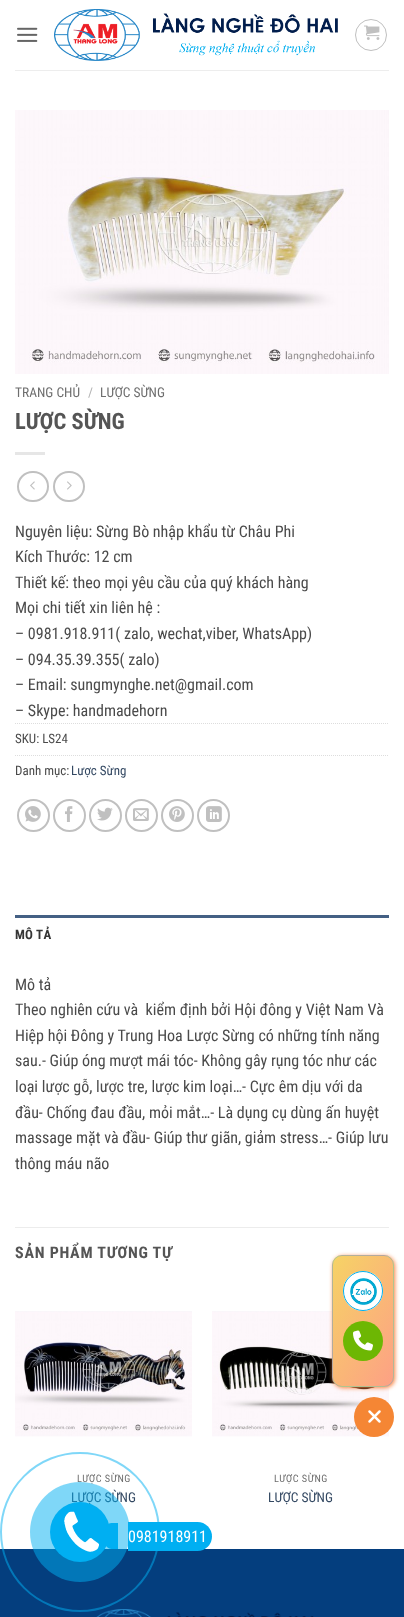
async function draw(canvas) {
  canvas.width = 404
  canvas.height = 1617
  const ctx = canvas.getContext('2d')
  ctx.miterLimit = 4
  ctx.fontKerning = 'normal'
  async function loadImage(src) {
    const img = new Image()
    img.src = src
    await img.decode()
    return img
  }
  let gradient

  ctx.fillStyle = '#fff'
  ctx.fillRect(0, 0, 404, 1617)
  ctx.drawImage(await loadImage('image0.png'), 17, 27, 21, 15)
  ctx.drawImage(await loadImage('image1.png'), 54, 9, 284, 52)
  ctx.beginPath()
  ctx.arc(371, 35, 15.5, 0, 2 * Math.PI)
  ctx.strokeStyle = '#c0c0c0'
  ctx.stroke()
  ctx.drawImage(await loadImage('image2.png'), 364, 25, 16, 15)
  ctx.fillStyle = '#ededed'
  ctx.fillRect(15, 70, 374, 1)
  ctx.drawImage(await loadImage('image3.png'), 15, 110, 374, 264)
  ctx.font = '13.5px Roboto Condensed'
  ctx.fillStyle = '#6e6e6e'
  ctx.fillText('TRANG CHỦ', 15, 397)
  ctx.fillStyle = '#b2b2b2'
  ctx.fillText('/', 88, 397)
  ctx.fillStyle = '#6e6e6e'
  ctx.fillText('LƯỢC SỪNG', 100, 397)
  ctx.font = 'bold 22.5px Roboto Condensed'
  ctx.fillStyle = '#555'
  ctx.fillText('LƯỢC SỪNG', 15, 429)
  ctx.fillStyle = '#e6e6e6'
  ctx.fillRect(15, 452, 30, 3)
  ctx.beginPath()
  ctx.roundRect(18, 472, 30, 29, 14.5)
  ctx.lineWidth = 2
  ctx.stroke()
  ctx.drawImage(await loadImage('image4.png'), 30, 481, 5, 9)
  ctx.beginPath()
  ctx.roundRect(54, 472, 30, 29, 14.5)
  ctx.stroke()
  ctx.drawImage(await loadImage('image5.png'), 67, 481, 5, 9)
  ctx.font = '16px Roboto Condensed'
  ctx.fillStyle = '#4a4a4a'
  ctx.fillText('Nguyên liệu: Sừng Bò nhập khẩu từ Châu Phi', 15, 537)
  ctx.fillText('Kích Thước: 12 cm', 15, 562)
  ctx.fillText('Thiết kế: theo mọi yêu cầu của quý khách hàng', 15, 588)
  ctx.fillText('Mọi chi tiết xin liên hệ :', 15, 613)
  ctx.fillText('– 0981.918.911( zalo, wechat,viber, WhatsApp)', 15, 639)
  ctx.fillText('– 094.35.39.355( zalo)', 15, 665)
  ctx.fillText('– Email: sungmynghe.net@gmail.com', 15, 690)
  ctx.fillText('– Skype: handmadehorn', 15, 716)
  ctx.beginPath()
  ctx.moveTo(15, 723.5)
  ctx.lineTo(389, 723.5)
  ctx.strokeStyle = '#ddd'
  ctx.lineWidth = 1
  ctx.setLineDash([1, 1])
  ctx.stroke()
  ctx.font = '13px Roboto Condensed'
  ctx.fillText('SKU: LS24', 15, 743)
  ctx.beginPath()
  ctx.moveTo(15, 755.5)
  ctx.lineTo(389, 755.5)
  ctx.stroke()
  ctx.fillText('Danh mục:', 15, 775)
  ctx.fillStyle = '#334862'
  ctx.fillText('Lược Sừng', 71, 775)
  ctx.beginPath()
  ctx.arc(33.5, 815.5, 15.5, 0, 2 * Math.PI)
  ctx.strokeStyle = '#c0c0c0'
  ctx.lineWidth = 2
  ctx.setLineDash([])
  ctx.stroke()
  ctx.drawImage(await loadImage('image6.png'), 25, 806, 16, 16)
  ctx.beginPath()
  ctx.arc(69.5, 815.5, 15.5, 0, 2 * Math.PI)
  ctx.stroke()
  ctx.drawImage(await loadImage('image7.png'), 65, 806, 8, 16)
  ctx.beginPath()
  ctx.arc(105.5, 815.5, 15.5, 0, 2 * Math.PI)
  ctx.stroke()
  ctx.drawImage(await loadImage('image8.png'), 97, 807, 16, 14)
  ctx.beginPath()
  ctx.arc(141.5, 815.5, 15.5, 0, 2 * Math.PI)
  ctx.stroke()
  ctx.drawImage(await loadImage('image9.png'), 133, 808, 16, 13)
  ctx.beginPath()
  ctx.arc(177.5, 815.5, 15.5, 0, 2 * Math.PI)
  ctx.stroke()
  ctx.drawImage(await loadImage('image10.png'), 169, 806, 16, 16)
  ctx.beginPath()
  ctx.arc(213.5, 815.5, 15.5, 0, 2 * Math.PI)
  ctx.stroke()
  ctx.drawImage(await loadImage('image11.png'), 206, 806, 16, 16)
  ctx.fillStyle = '#446084'
  ctx.fillRect(15, 915, 374, 3)
  ctx.letterSpacing = '0.25px'
  ctx.font = 'bold 13px Roboto Condensed'
  ctx.fillStyle = '#363636'
  ctx.fillText('MÔ TẢ', 15, 939)
  ctx.letterSpacing = '0px'
  ctx.font = '16px Roboto Condensed'
  ctx.fillStyle = '#4a4a4a'
  ctx.fillText('Mô tả', 15, 990)
  ctx.fillText('Theo nghiên cứu và  kiểm định bởi Hội đông y Việt Nam Và', 15, 1015)
  ctx.fillText('Hiệp hội Đông y Trung Hoa Lược Sừng có những tính năng', 15, 1041)
  ctx.fillText('sau.- Giúp óng mượt mái tóc- Không gây rụng tóc như các', 15, 1066)
  ctx.fillText('loại lược gỗ, lược tre, lược kim loại…- Cực êm dịu với da', 15, 1092)
  ctx.fillText('đầu- Chống đau đầu, mỏi mắt…- Là dụng cụ dùng ấn huyệt', 15, 1118)
  ctx.fillText('massage mặt và đầu- Giúp thư giãn, giảm stress…- Giúp lưu', 15, 1143)
  ctx.fillText('thông máu não', 15, 1169)
  ctx.fillStyle = '#ececec'
  ctx.fillRect(15, 1227, 374, 1)
  ctx.letterSpacing = '0.75px'
  ctx.font = 'bold 16px Roboto Condensed'
  ctx.fillStyle = '#555'
  ctx.fillText('SẢN PHẨM TƯƠNG TỰ', 15, 1258)
  ctx.drawImage(await loadImage('image12.png'), 15, 1311, 177, 126)
  ctx.letterSpacing = '0.5px'
  ctx.font = '10.25px Roboto Condensed'
  ctx.fillStyle = '#6e6e6e'
  ctx.fillText('LƯỢC SỪNG', 77, 1482)
  ctx.letterSpacing = '0px'
  ctx.font = '13.5px Roboto Condensed'
  ctx.fillStyle = '#334862'
  ctx.fillText('LƯỢC SỪNG', 71, 1502)
  ctx.drawImage(await loadImage('image13.png'), 212, 1311, 177, 126)
  ctx.letterSpacing = '0.5px'
  ctx.font = '10.25px Roboto Condensed'
  ctx.fillStyle = '#6e6e6e'
  ctx.fillText('LƯỢC SỪNG', 274, 1482)
  ctx.letterSpacing = '0px'
  ctx.font = '13.5px Roboto Condensed'
  ctx.fillStyle = '#334862'
  ctx.fillText('LƯỢC SỪNG', 268, 1502)
  ctx.fillStyle = '#043e7e'
  ctx.fillRect(0, 1549, 404, 68)
  ctx.drawImage(await loadImage('image14.png'), 96, 1609, 218, 8)
  ctx.fillStyle = '#fb8543'
  ctx.filter = 'blur(2px)'
  ctx.beginPath()
  ctx.roundRect(333, 1256, 62, 132, 10)
  ctx.fill()
  ctx.filter = 'none'
  ctx.save()
  ctx.beginPath()
  ctx.roundRect(332, 1255, 62, 132, 10)
  ctx.clip()
  gradient = ctx.createLinearGradient(312, 1162, 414, 1220)
  gradient.addColorStop(0, '#f6d365')
  gradient.addColorStop(1, '#fda085')
  ctx.fillStyle = gradient
  ctx.fillRect(333, 1255, 60, 1)
  gradient = ctx.createLinearGradient(252, 1292, 354, 1350)
  gradient.addColorStop(0, '#f6d365')
  gradient.addColorStop(1, '#fda085')
  ctx.fillStyle = gradient
  ctx.fillRect(332, 1256, 1, 130)
  gradient = ctx.createLinearGradient(312, 1292, 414, 1350)
  gradient.addColorStop(0, '#f6d365')
  gradient.addColorStop(1, '#fda085')
  ctx.fillStyle = gradient
  ctx.fillRect(333, 1256, 60, 130)
  gradient = ctx.createLinearGradient(372, 1292, 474, 1350)
  gradient.addColorStop(0, '#f6d365')
  gradient.addColorStop(1, '#fda085')
  ctx.fillStyle = gradient
  ctx.fillRect(393, 1256, 1, 130)
  gradient = ctx.createLinearGradient(312, 1422, 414, 1480)
  gradient.addColorStop(0, '#f6d365')
  gradient.addColorStop(1, '#fda085')
  ctx.fillStyle = gradient
  ctx.fillRect(333, 1386, 60, 1)
  ctx.restore()
  ctx.beginPath()
  ctx.roundRect(332.5, 1255.5, 61, 131, 9.5)
  ctx.strokeStyle = '#00afee4a'
  ctx.lineWidth = 1
  ctx.stroke()
  ctx.fillStyle = '#fff'
  ctx.beginPath()
  ctx.arc(363, 1291, 20, 0, 2 * Math.PI)
  ctx.fill()
  ctx.drawImage(await loadImage('image15.png'), 350, 1278, 27, 27)
  ctx.beginPath()
  ctx.arc(363, 1291, 19.5, 0, 2 * Math.PI)
  ctx.strokeStyle = '#00afee'
  ctx.stroke()
  ctx.fillStyle = '#6db703'
  ctx.beginPath()
  ctx.arc(363, 1341, 20, 0, 2 * Math.PI)
  ctx.fill()
  ctx.drawImage(await loadImage('image16.png'), 353, 1330, 20, 21)
  ctx.fillStyle = '#f58634'
  ctx.beginPath()
  ctx.arc(374, 1417, 20, 0, 2 * Math.PI)
  ctx.fill()
  ctx.drawImage(await loadImage('image17.png'), 368, 1410, 13, 13)
  ctx.beginPath()
  ctx.arc(80, 1532, 79, 0, 2 * Math.PI)
  ctx.strokeStyle = '#00aff280'
  ctx.lineWidth = 2
  ctx.stroke()
  ctx.fillStyle = '#00aff280'
  ctx.beginPath()
  ctx.arc(80, 1532, 50, 0, 2 * Math.PI)
  ctx.fill()
  ctx.fillStyle = '#00aff2'
  ctx.beginPath()
  ctx.arc(80, 1532, 30, 0, 2 * Math.PI)
  ctx.fill()
  ctx.drawImage(await loadImage('image18.png'), 64, 1511, 35, 41)
  ctx.beginPath()
  ctx.roundRect(128, 1522, 84, 29, [0, 14.5, 14.5, 0])
  ctx.fill()
  ctx.font = '16px Roboto Condensed'
  ctx.fillStyle = '#fff'
  ctx.fillText('0981918911', 128, 1542)
  ctx.fillStyle = '#00aff2'
  ctx.beginPath()
  ctx.roundRect(105, 1523, 13, 26, [6.5, 0, 0, 6.5])
  ctx.fill()
}

draw(document.querySelector('canvas'))
